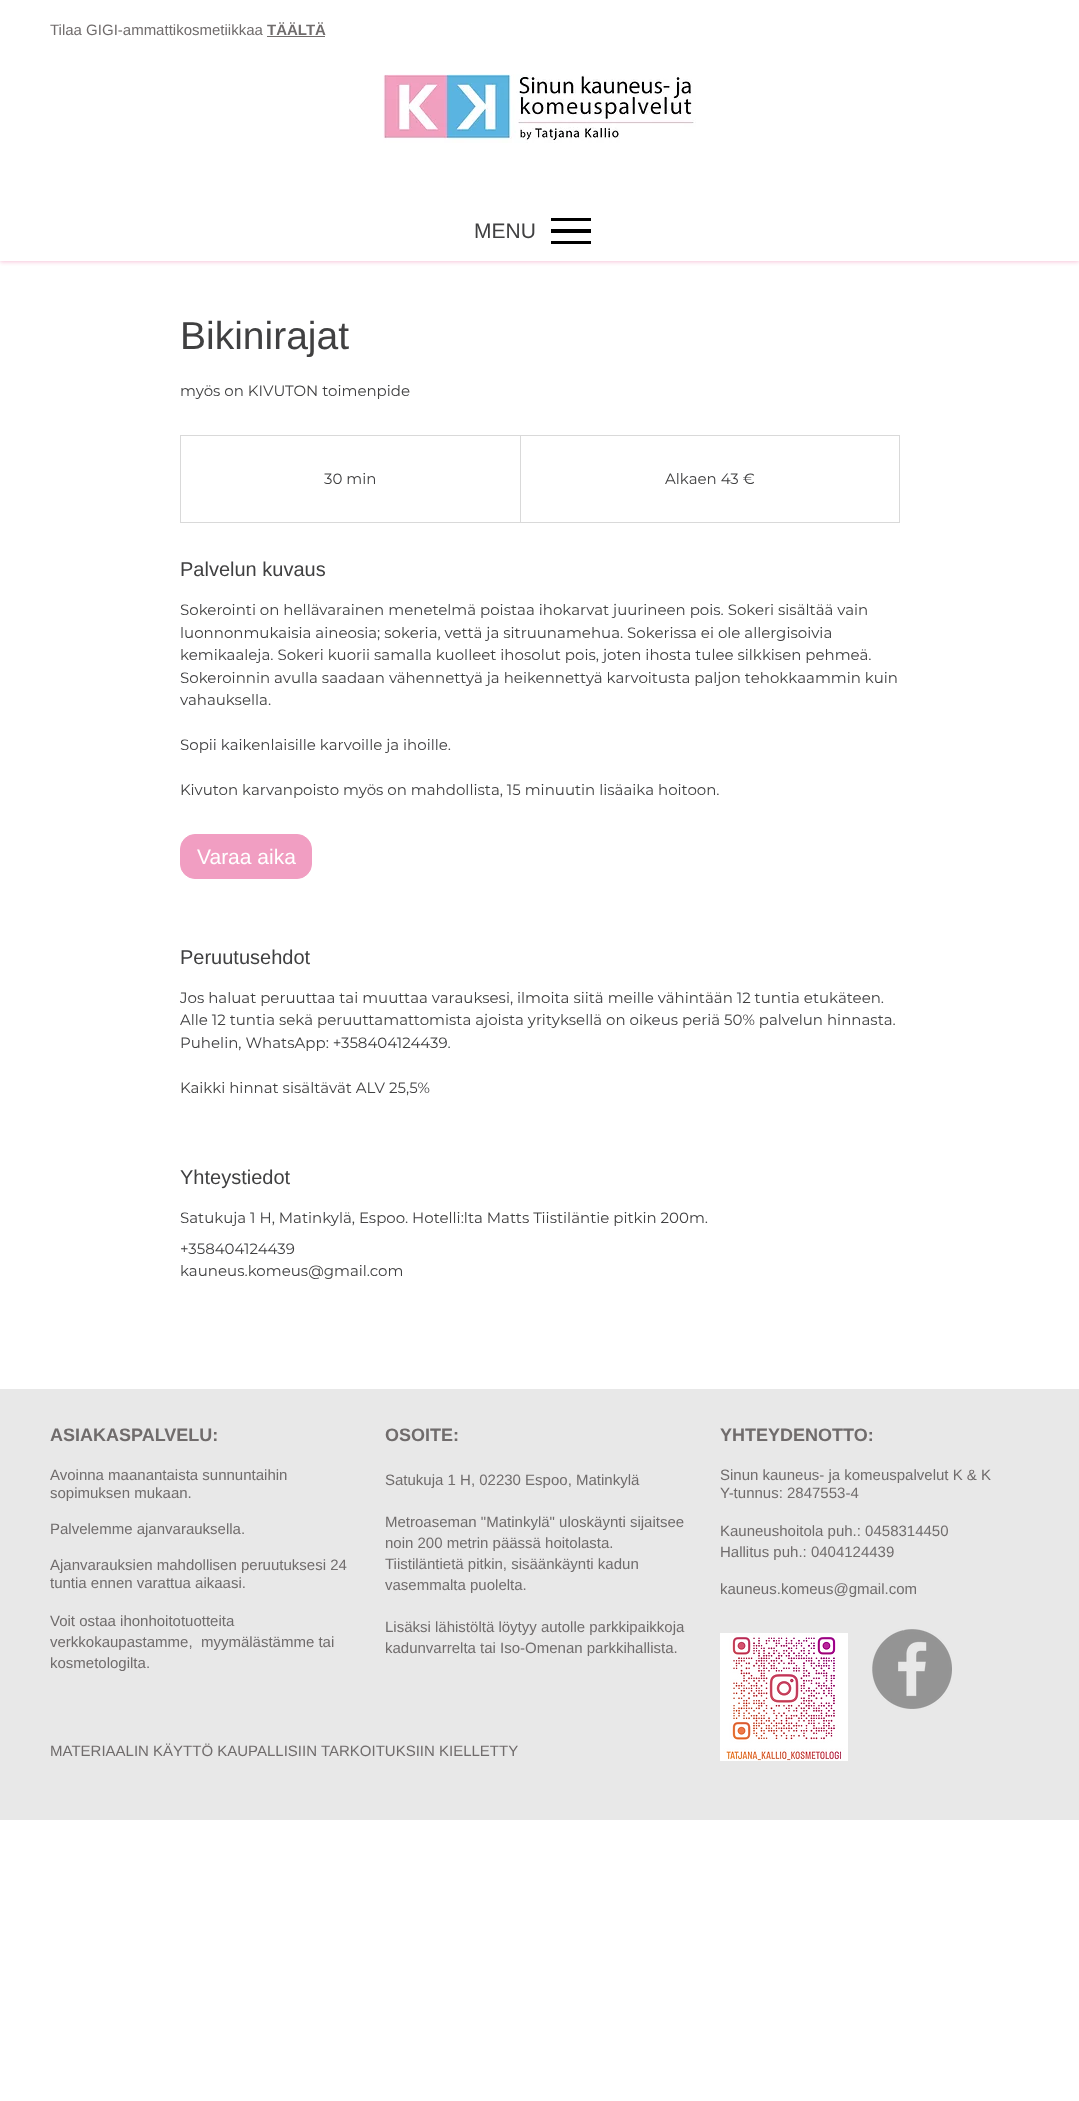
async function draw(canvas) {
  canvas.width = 1079
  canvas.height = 2101
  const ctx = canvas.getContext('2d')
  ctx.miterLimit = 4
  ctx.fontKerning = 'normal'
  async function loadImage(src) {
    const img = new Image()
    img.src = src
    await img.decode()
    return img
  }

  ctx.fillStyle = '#fff'
  ctx.fillRect(0, 0, 1079, 2101)
  ctx.save()
  ctx.beginPath()
  ctx.rect(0, 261, 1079, 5)
  ctx.clip()
  ctx.fillStyle = '#f19ec299'
  ctx.filter = 'blur(2px)'
  ctx.beginPath()
  ctx.rect(0, 1, 1079, 261)
  ctx.fill()
  ctx.filter = 'none'
  ctx.restore()
  ctx.font = '15px Liberation Sans'
  ctx.fillStyle = '#706c6c'
  ctx.fillText('Tilaa GIGI-ammattikosmetiikkaa', 50, 35)
  ctx.font = 'bold 15px Liberation Sans'
  ctx.fillText('TÄÄLTÄ', 267, 35)
  ctx.fillRect(267, 36, 58, 1)
  ctx.drawImage(await loadImage('image0.png'), 383, 74, 313, 69)
  ctx.font = '21px Liberation Sans'
  ctx.fillStyle = '#404041'
  ctx.fillText('MENU', 474, 238)
  ctx.fillStyle = '#000'
  ctx.fillRect(551, 241, 40, 3)
  ctx.fillRect(551, 218, 40, 3)
  ctx.fillRect(551, 229, 40, 4)
  ctx.font = '39px Liberation Sans'
  ctx.fillStyle = '#404041'
  ctx.fillText('Bikinirajat', 180, 349)
  ctx.font = '15px Montserrat'
  ctx.fillText('myös on KIVUTON toimenpide', 180, 396)
  ctx.strokeStyle = '#d9d9d9'
  ctx.strokeRect(180.5, 435.5, 719, 87)
  ctx.fillText('30 min', 324, 484)
  ctx.fillStyle = '#d9d9d9'
  ctx.beginPath()
  ctx.moveTo(520, 522)
  ctx.lineTo(520, 435)
  ctx.lineTo(521, 436)
  ctx.lineTo(521, 522)
  ctx.closePath()
  ctx.fill()
  ctx.fillStyle = '#404041'
  ctx.fillText('Alkaen 43 €', 665, 484)
  ctx.font = '20px Liberation Sans'
  ctx.fillText('Palvelun kuvaus', 180, 576)
  ctx.font = '15px Montserrat'
  ctx.fillText('Sokerointi on hellävarainen menetelmä poistaa ihokarvat juurineen pois. Sokeri sisältää vain', 180, 615)
  ctx.fillText('luonnonmukaisia aineosia; sokeria, vettä ja sitruunamehua. Sokerissa ei ole allergisoivia', 180, 638)
  ctx.fillText('kemikaaleja. Sokeri kuorii samalla kuolleet ihosolut pois, joten ihosta tulee silkkisen pehmeä.', 180, 660)
  ctx.fillText('Sokeroinnin avulla saadaan vähennettyä ja heikennettyä karvoitusta paljon tehokkaammin kuin', 180, 683)
  ctx.fillText('vahauksella.', 180, 705)
  ctx.fillText('Sopii kaikenlaisille karvoille ja ihoille.', 180, 750)
  ctx.fillText('Kivuton karvanpoisto myös on mahdollista, 15 minuutin lisäaika hoitoon.', 180, 795)
  ctx.fillStyle = '#f19ec2'
  ctx.beginPath()
  ctx.roundRect(180.5, 834.5, 131, 44, 14.5)
  ctx.fill()
  ctx.strokeStyle = '#f19ec2'
  ctx.stroke()
  ctx.font = '21px Liberation Sans'
  ctx.fillStyle = '#fff'
  ctx.fillText('Varaa aika', 197, 864)
  ctx.font = '20px Liberation Sans'
  ctx.fillStyle = '#404041'
  ctx.fillText('Peruutusehdot', 180, 964)
  ctx.font = '15px Montserrat'
  ctx.fillText('Jos haluat peruuttaa tai muuttaa varauksesi, ilmoita siitä meille vähintään 12 tuntia etukäteen.', 180, 1003)
  ctx.fillText('Alle 12 tuntia sekä peruuttamattomista ajoista yrityksellä on oikeus periä 50% palvelun hinnasta.', 180, 1025)
  ctx.fillText('Puhelin, WhatsApp: +358404124439.', 180, 1048)
  ctx.fillText('Kaikki hinnat sisältävät ALV 25,5%', 180, 1093)
  ctx.font = '20px Liberation Sans'
  ctx.fillText('Yhteystiedot', 180, 1184)
  ctx.font = '15px Montserrat'
  ctx.fillText('Satukuja 1 H, Matinkylä, Espoo. Hotelli:lta Matts Tiistiläntie pitkin 200m.', 180, 1223)
  ctx.fillText('+358404124439', 180, 1254)
  ctx.fillText('kauneus.komeus@gmail.com', 180, 1276)
  ctx.fillStyle = '#e8e8e8'
  ctx.fillRect(0, 1389, 1079, 431)
  ctx.font = 'bold 18px Liberation Sans'
  ctx.fillStyle = '#706c6c'
  ctx.fillText('ASIAKASPALVELU:', 50, 1441)
  ctx.font = '15px Liberation Sans'
  ctx.fillText('Avoinna maanantaista sunnuntaihin', 50, 1480)
  ctx.fillText('sopimuksen mukaan.', 50, 1498)
  ctx.fillText('Palvelemme ajanvarauksella.', 50, 1534)
  ctx.fillText('Ajanvarauksien mahdollisen peruutuksesi 24', 50, 1570)
  ctx.fillText('tuntia ennen varattua aikaasi.', 50, 1588)
  ctx.fillText('Voit ostaa ihonhoitotuotteita', 50, 1626)
  ctx.fillText('verkkokaupastamme,  myymälästämme tai', 50, 1647)
  ctx.fillText('kosmetologilta.', 50, 1668)
  ctx.font = 'bold 18px Liberation Sans'
  ctx.fillText('OSOITE:', 385, 1441)
  ctx.font = '15px Liberation Sans'
  ctx.fillText('Satukuja 1 H, 02230 Espoo, Matinkylä', 385, 1485)
  ctx.fillText('Metroaseman "Matinkylä" uloskäynti sijaitsee', 385, 1527)
  ctx.fillText('noin 200 metrin päässä hoitolasta.', 385, 1548)
  ctx.fillText('Tiistiläntietä pitkin, sisäänkäynti kadun', 385, 1569)
  ctx.fillText('vasemmalta puolelta.', 385, 1590)
  ctx.fillText('Lisäksi lähistöltä löytyy autolle parkkipaikkoja', 385, 1632)
  ctx.fillText('kadunvarrelta tai Iso-Omenan parkkihallista.', 385, 1653)
  ctx.font = 'bold 18px Liberation Sans'
  ctx.fillText('YHTEYDENOTTO:', 720, 1441)
  ctx.font = '15px Liberation Sans'
  ctx.fillText('Sinun kauneus- ja komeuspalvelut K & K', 720, 1480)
  ctx.fillText('Y-tunnus: 2847553-4', 720, 1498)
  ctx.fillText('Kauneushoitola puh.: 0458314450', 720, 1536)
  ctx.fillText('Hallitus puh.: 0404124439', 720, 1557)
  ctx.fillText('kauneus.komeus@gmail.com', 720, 1594)
  ctx.fillText('MATERIAALIN KÄYTTÖ KAUPALLISIIN TARKOITUKSIIN KIELLETTY', 50, 1756)
  ctx.drawImage(await loadImage('image1.png'), 720, 1633, 128, 128)
  ctx.drawImage(await loadImage('image2.png'), 872, 1629, 80, 80)
}

draw(document.querySelector('canvas'))
